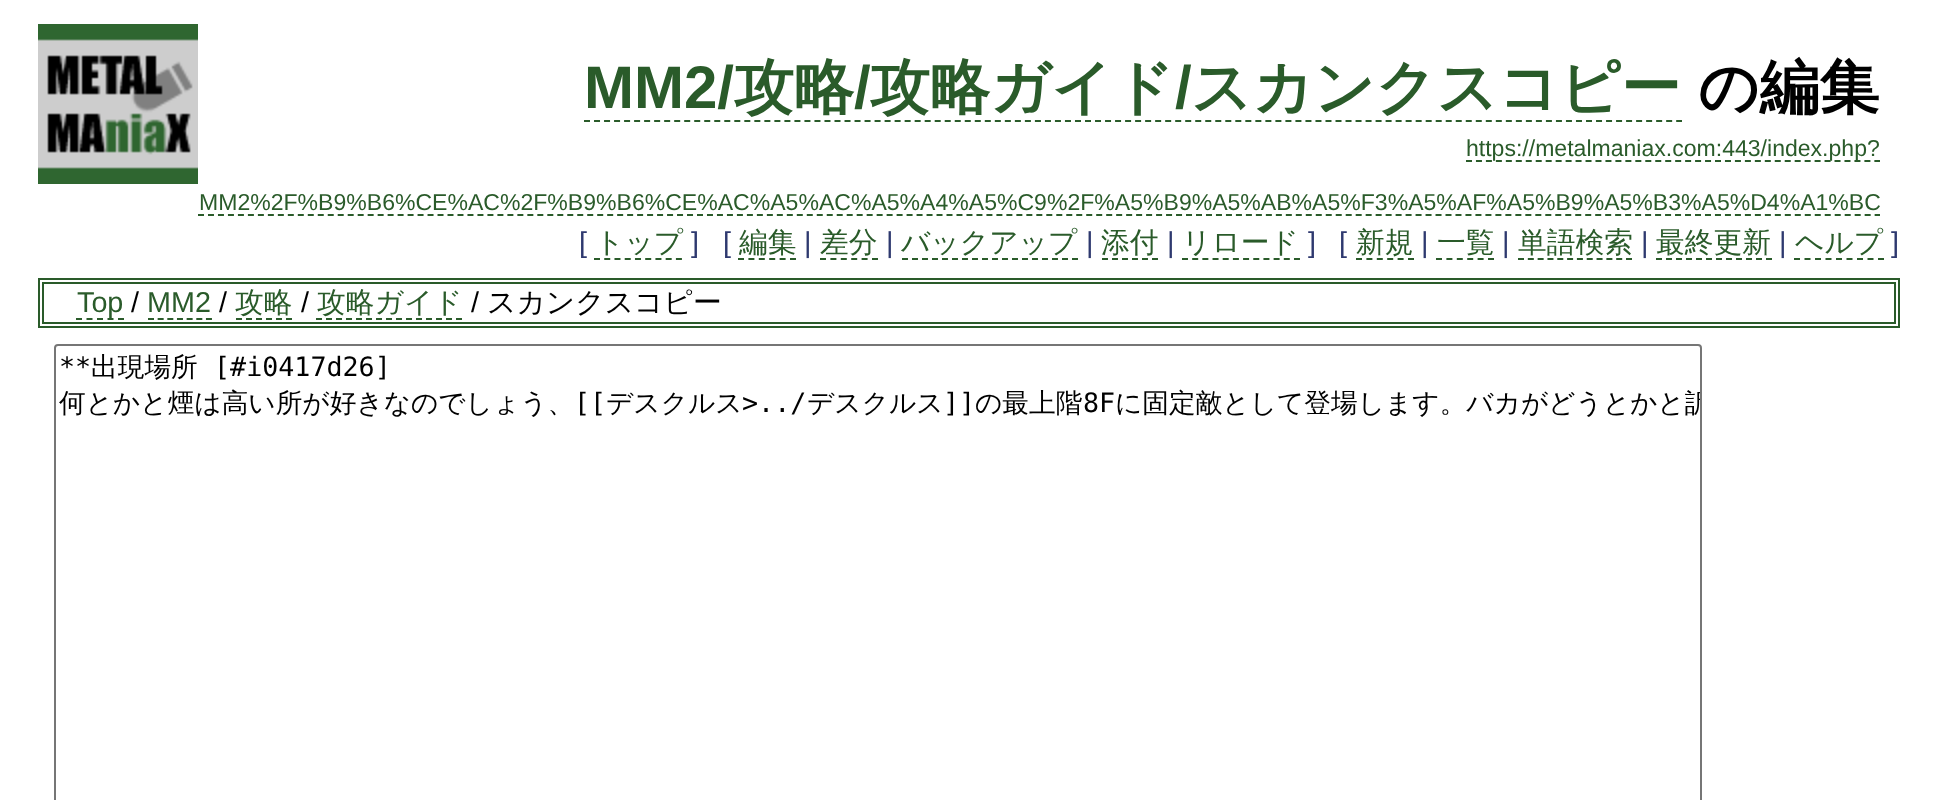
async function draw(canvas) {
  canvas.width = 1938
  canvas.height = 800
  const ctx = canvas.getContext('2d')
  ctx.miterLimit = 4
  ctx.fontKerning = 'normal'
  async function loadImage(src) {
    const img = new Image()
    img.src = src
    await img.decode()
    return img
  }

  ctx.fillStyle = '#fff'
  ctx.fillRect(0, 0, 1938, 800)
  ctx.drawImage(await loadImage('image0.png'), 38, 24, 160, 160)
  ctx.font = 'bold 60px Liberation Sans'
  ctx.fillStyle = '#2a5b2a'
  ctx.fillText('MM2/', 584, 108)
  ctx.font = 'bold 60px WenQuanYi Zen Hei'
  ctx.fillText('攻略', 734, 108)
  ctx.beginPath()
  ctx.moveTo(584, 121)
  ctx.lineTo(1682, 121)
  ctx.strokeStyle = '#2a5b2a'
  ctx.lineWidth = 2
  ctx.setLineDash([6, 4.02])
  ctx.stroke()
  ctx.font = 'bold 60px Liberation Sans'
  ctx.fillText('/', 854, 108)
  ctx.font = 'bold 60px WenQuanYi Zen Hei'
  ctx.fillText('攻略ガイド', 870, 108)
  ctx.font = 'bold 60px Liberation Sans'
  ctx.fillText('/', 1175, 108)
  ctx.font = 'bold 60px WenQuanYi Zen Hei'
  ctx.fillText('スカンクスコピー', 1191, 108)
  ctx.fillStyle = '#000'
  ctx.fillText('の編集', 1698, 108)
  ctx.beginPath()
  ctx.moveTo(1466, 161)
  ctx.lineTo(1880, 161)
  ctx.setLineDash([6, 3.96])
  ctx.stroke()
  ctx.font = '23.05px Liberation Sans'
  ctx.fillStyle = '#2a5b2a'
  ctx.fillText('https://metalmaniax.com:443/index.php?', 1466, 156)
  ctx.fillText('MM2%2F%B9%B6%CE%AC%2F%B9%B6%CE%AC%A5%AC%A5%A4%A5%C9%2F%A5%B9%A5%AB%A5%F3%A5%AF%A5%B9%A5%B3%A5%D4%A1%BC', 199, 210)
  ctx.beginPath()
  ctx.moveTo(198, 215)
  ctx.lineTo(1880, 215)
  ctx.setLineDash([6, 3.98])
  ctx.stroke()
  ctx.font = '28.75px Liberation Sans'
  ctx.fillStyle = '#2e396f'
  ctx.fillText('[', 579, 252)
  ctx.font = '500 28.75px WenQuanYi Zen Hei'
  ctx.fillStyle = '#2a5b2a'
  ctx.fillText('トップ', 595, 252)
  ctx.beginPath()
  ctx.moveTo(594, 259)
  ctx.lineTo(682, 259)
  ctx.setLineDash([6, 4.24])
  ctx.stroke()
  ctx.font = '28.75px Liberation Sans'
  ctx.fillStyle = '#2e396f'
  ctx.fillText(']', 691, 252)
  ctx.fillText('[', 723, 252)
  ctx.font = '500 28.75px WenQuanYi Zen Hei'
  ctx.fillStyle = '#2a5b2a'
  ctx.fillText('編集', 739, 252)
  ctx.beginPath()
  ctx.moveTo(738, 259)
  ctx.lineTo(796, 259)
  ctx.setLineDash([6, 4.4])
  ctx.stroke()
  ctx.font = '28.75px Liberation Sans'
  ctx.fillStyle = '#2e396f'
  ctx.fillText('|', 804, 252)
  ctx.font = '500 28.75px WenQuanYi Zen Hei'
  ctx.fillStyle = '#2a5b2a'
  ctx.fillText('差分', 820, 252)
  ctx.beginPath()
  ctx.moveTo(820, 259)
  ctx.lineTo(878, 259)
  ctx.stroke()
  ctx.font = '28.75px Liberation Sans'
  ctx.fillStyle = '#2e396f'
  ctx.fillText('|', 886, 252)
  ctx.font = '500 28.75px WenQuanYi Zen Hei'
  ctx.fillStyle = '#2a5b2a'
  ctx.fillText('バックアップ', 901, 252)
  ctx.beginPath()
  ctx.moveTo(902, 259)
  ctx.lineTo(1078, 259)
  ctx.setLineDash([6, 4])
  ctx.stroke()
  ctx.font = '28.75px Liberation Sans'
  ctx.fillStyle = '#2e396f'
  ctx.fillText('|', 1086, 252)
  ctx.font = '500 28.75px WenQuanYi Zen Hei'
  ctx.fillStyle = '#2a5b2a'
  ctx.fillText('添付', 1101, 252)
  ctx.beginPath()
  ctx.moveTo(1102, 259)
  ctx.lineTo(1158, 259)
  ctx.stroke()
  ctx.font = '28.75px Liberation Sans'
  ctx.fillStyle = '#2e396f'
  ctx.fillText('|', 1167, 252)
  ctx.font = '500 28.75px WenQuanYi Zen Hei'
  ctx.fillStyle = '#2a5b2a'
  ctx.fillText('リロード', 1182, 252)
  ctx.beginPath()
  ctx.moveTo(1182, 259)
  ctx.lineTo(1300, 259)
  ctx.setLineDash([6, 4.18])
  ctx.stroke()
  ctx.font = '28.75px Liberation Sans'
  ctx.fillStyle = '#2e396f'
  ctx.fillText(']', 1308, 252)
  ctx.fillText('[', 1339, 252)
  ctx.font = '500 28.75px WenQuanYi Zen Hei'
  ctx.fillStyle = '#2a5b2a'
  ctx.fillText('新規', 1356, 252)
  ctx.beginPath()
  ctx.moveTo(1356, 259)
  ctx.lineTo(1414, 259)
  ctx.setLineDash([6, 4.4])
  ctx.stroke()
  ctx.font = '28.75px Liberation Sans'
  ctx.fillStyle = '#2e396f'
  ctx.fillText('|', 1421, 252)
  ctx.font = '500 28.75px WenQuanYi Zen Hei'
  ctx.fillStyle = '#2a5b2a'
  ctx.fillText('一覧', 1437, 252)
  ctx.beginPath()
  ctx.moveTo(1436, 259)
  ctx.lineTo(1494, 259)
  ctx.stroke()
  ctx.font = '28.75px Liberation Sans'
  ctx.fillStyle = '#2e396f'
  ctx.fillText('|', 1502, 252)
  ctx.font = '500 28.75px WenQuanYi Zen Hei'
  ctx.fillStyle = '#2a5b2a'
  ctx.fillText('単語検索', 1518, 252)
  ctx.beginPath()
  ctx.moveTo(1518, 259)
  ctx.lineTo(1632, 259)
  ctx.setLineDash([6, 3.82])
  ctx.stroke()
  ctx.font = '28.75px Liberation Sans'
  ctx.fillStyle = '#2e396f'
  ctx.fillText('|', 1641, 252)
  ctx.font = '500 28.75px WenQuanYi Zen Hei'
  ctx.fillStyle = '#2a5b2a'
  ctx.fillText('最終更新', 1656, 252)
  ctx.beginPath()
  ctx.moveTo(1656, 259)
  ctx.lineTo(1772, 259)
  ctx.setLineDash([6, 4])
  ctx.stroke()
  ctx.font = '28.75px Liberation Sans'
  ctx.fillStyle = '#2e396f'
  ctx.fillText('|', 1779, 252)
  ctx.font = '500 28.75px WenQuanYi Zen Hei'
  ctx.fillStyle = '#2a5b2a'
  ctx.fillText('ヘルプ', 1795, 252)
  ctx.beginPath()
  ctx.moveTo(1794, 259)
  ctx.lineTo(1884, 259)
  ctx.setLineDash([6, 4.5])
  ctx.stroke()
  ctx.font = '28.75px Liberation Sans'
  ctx.fillStyle = '#2e396f'
  ctx.fillText(']', 1891, 252)
  ctx.setLineDash([])
  ctx.strokeRect(39, 279, 1860, 48)
  ctx.strokeRect(43, 283, 1852, 40)
  ctx.fillStyle = '#2a5b2a'
  ctx.fillText('Top', 77, 312)
  ctx.beginPath()
  ctx.moveTo(76, 319)
  ctx.lineTo(124, 319)
  ctx.setLineDash([6, 4.5])
  ctx.stroke()
  ctx.fillStyle = '#000'
  ctx.fillText('/', 131, 312)
  ctx.fillStyle = '#2a5b2a'
  ctx.fillText('MM2', 147, 312)
  ctx.beginPath()
  ctx.moveTo(148, 319)
  ctx.lineTo(212, 319)
  ctx.setLineDash([6, 3.66])
  ctx.stroke()
  ctx.fillStyle = '#000'
  ctx.fillText('/', 219, 312)
  ctx.font = '500 28.75px WenQuanYi Zen Hei'
  ctx.fillStyle = '#2a5b2a'
  ctx.fillText('攻略', 235, 312)
  ctx.beginPath()
  ctx.moveTo(236, 319)
  ctx.lineTo(292, 319)
  ctx.setLineDash([6, 4])
  ctx.stroke()
  ctx.font = '28.75px Liberation Sans'
  ctx.fillStyle = '#000'
  ctx.fillText('/', 301, 312)
  ctx.font = '500 28.75px WenQuanYi Zen Hei'
  ctx.fillStyle = '#2a5b2a'
  ctx.fillText('攻略ガイド', 317, 312)
  ctx.beginPath()
  ctx.moveTo(316, 319)
  ctx.lineTo(462, 319)
  ctx.stroke()
  ctx.font = '28.75px Liberation Sans'
  ctx.fillStyle = '#000'
  ctx.fillText('/', 471, 312)
  ctx.font = '500 28.75px WenQuanYi Zen Hei'
  ctx.fillText('スカンクスコピー', 487, 312)
  ctx.beginPath()
  ctx.roundRect(55, 345, 1646, 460, 3)
  ctx.strokeStyle = '#767676'
  ctx.setLineDash([])
  ctx.stroke()
  ctx.font = '26.7px DejaVu Sans Mono'
  ctx.fillText('**', 59, 376)
  ctx.font = '500 26.7px WenQuanYi Zen Hei'
  ctx.fillText('出現場所', 91, 376)
  ctx.font = '26.7px DejaVu Sans Mono'
  ctx.fillText('[#i0417d26]', 214, 376)
  ctx.font = '500 26.7px WenQuanYi Zen Hei'
  ctx.fillText('何とかと煙は高い所が好きなのでしょう、', 59, 412)
  ctx.font = '26.7px DejaVu Sans Mono'
  ctx.fillText('[[', 574, 412)
  ctx.font = '500 26.7px WenQuanYi Zen Hei'
  ctx.fillText('デスクルス', 606, 412)
  ctx.font = '26.7px DejaVu Sans Mono'
  ctx.fillText('>../', 742, 412)
  ctx.font = '500 26.7px WenQuanYi Zen Hei'
  ctx.fillText('デスクルス', 807, 412)
  ctx.font = '26.7px DejaVu Sans Mono'
  ctx.fillText(']]', 943, 412)
  ctx.font = '500 26.7px WenQuanYi Zen Hei'
  ctx.fillText('の最上階', 975, 412)
  ctx.font = '26.7px DejaVu Sans Mono'
  ctx.fillText('8F', 1083, 412)
  ctx.save()
  ctx.beginPath()
  ctx.rect(56, 346, 1644, 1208)
  ctx.clip()
  ctx.font = '500 26.7px WenQuanYi Zen Hei'
  ctx.fillText('に固定敵として登場します。バカがどうとかと訳', 1115, 412)
  ctx.restore()
}

draw(document.querySelector('canvas'))
